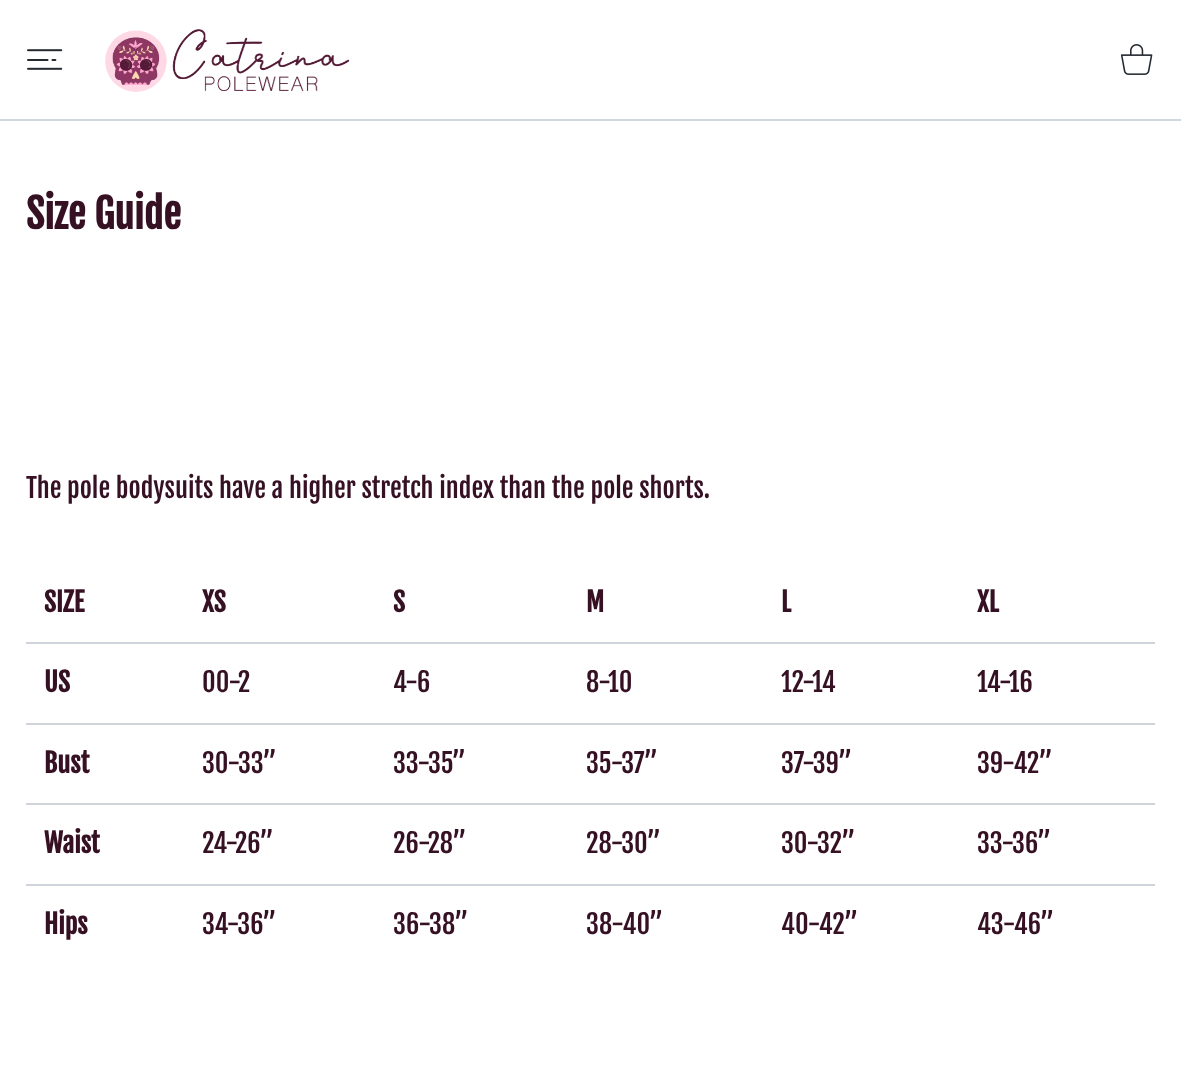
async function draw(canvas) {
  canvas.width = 1181
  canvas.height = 1075
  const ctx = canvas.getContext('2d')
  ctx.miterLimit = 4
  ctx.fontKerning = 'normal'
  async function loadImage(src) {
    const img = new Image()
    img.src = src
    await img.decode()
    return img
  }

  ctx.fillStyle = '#fff'
  ctx.fillRect(0, 0, 1181, 1075)
  ctx.fillStyle = '#cdd8e1'
  ctx.fillRect(0, 119, 1181, 2)
  ctx.drawImage(await loadImage('image0.png'), 105, 29, 245, 63)
  ctx.drawImage(await loadImage('image1.png'), 27, 49, 36, 21)
  ctx.drawImage(await loadImage('image2.png'), 1120, 44, 33, 31)
  ctx.font = 'bold 40px Fjalla One'
  ctx.fillStyle = '#361123'
  ctx.fillText('Size Guide', 26, 229)
  ctx.font = '26.25px Fjalla One'
  ctx.fillText('The pole bodysuits have a higher stretch index than the pole shorts.', 26, 498)
  ctx.font = 'bold 26.25px Fjalla One'
  ctx.fillText('SIZE', 44, 612)
  ctx.fillText('XS', 202, 612)
  ctx.fillText('S', 393, 612)
  ctx.fillText('M', 586, 612)
  ctx.fillText('L', 781, 612)
  ctx.fillStyle = '#ced4da'
  ctx.fillRect(26, 642, 1129, 2)
  ctx.fillStyle = '#361123'
  ctx.fillText('XL', 977, 612)
  ctx.fillText('US', 44, 692)
  ctx.font = '26.25px Fjalla One'
  ctx.fillText('00-2', 202, 692)
  ctx.fillText('4-6', 393, 692)
  ctx.fillText('8-10', 586, 692)
  ctx.fillText('12-14', 781, 692)
  ctx.fillStyle = '#ced4da'
  ctx.fillRect(26, 723, 1129, 2)
  ctx.fillStyle = '#361123'
  ctx.fillText('14-16', 977, 692)
  ctx.font = 'bold 26.25px Fjalla One'
  ctx.fillText('Bust', 44, 773)
  ctx.font = '26.25px Fjalla One'
  ctx.fillText('30-33”', 202, 773)
  ctx.fillText('33-35”', 393, 773)
  ctx.fillText('35-37”', 586, 773)
  ctx.fillText('37-39”', 781, 773)
  ctx.fillStyle = '#ced4da'
  ctx.fillRect(26, 803, 1129, 2)
  ctx.fillStyle = '#361123'
  ctx.fillText('39-42”', 977, 773)
  ctx.font = 'bold 26.25px Fjalla One'
  ctx.fillText('Waist', 44, 853)
  ctx.font = '26.25px Fjalla One'
  ctx.fillText('24-26”', 202, 853)
  ctx.fillText('26-28”', 393, 853)
  ctx.fillText('28-30”', 586, 853)
  ctx.fillText('30-32”', 781, 853)
  ctx.fillStyle = '#ced4da'
  ctx.fillRect(26, 884, 1129, 2)
  ctx.fillStyle = '#361123'
  ctx.fillText('33-36”', 977, 853)
  ctx.font = 'bold 26.25px Fjalla One'
  ctx.fillText('Hips', 44, 934)
  ctx.font = '26.25px Fjalla One'
  ctx.fillText('34-36”', 202, 934)
  ctx.fillText('36-38”', 393, 934)
  ctx.fillText('38-40”', 586, 934)
  ctx.fillText('40-42”', 781, 934)
  ctx.fillText('43-46”', 977, 934)
}

draw(document.querySelector('canvas'))
